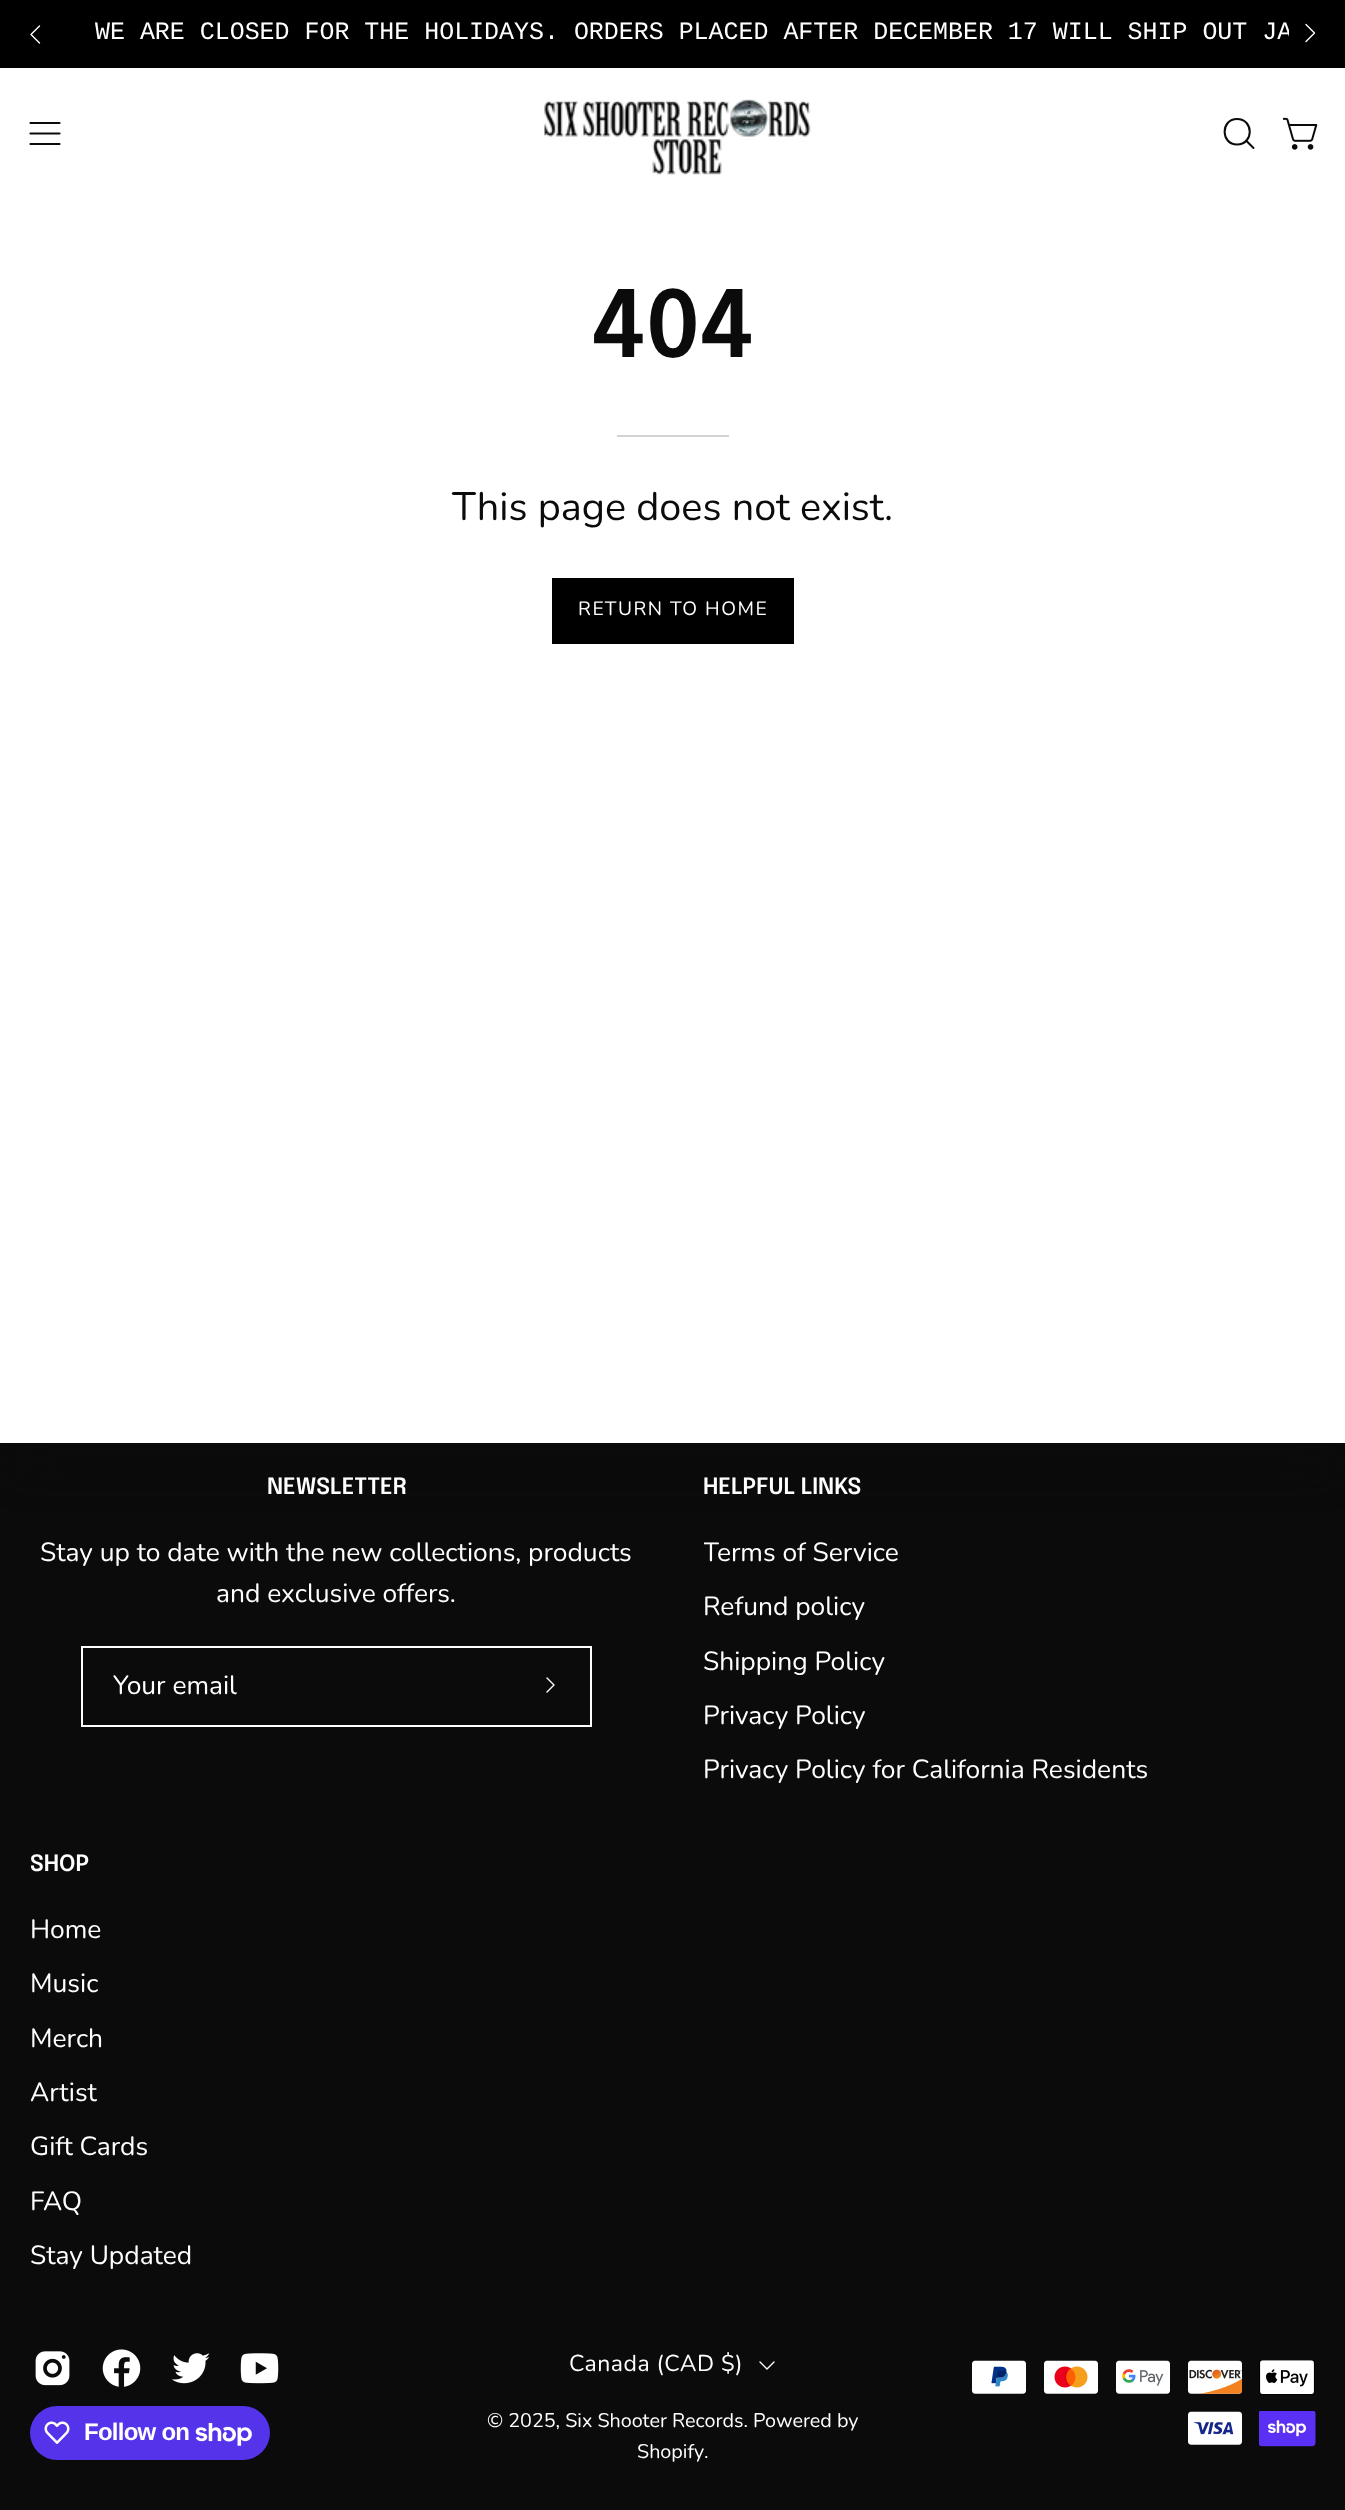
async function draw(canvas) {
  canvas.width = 1345
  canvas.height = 2510
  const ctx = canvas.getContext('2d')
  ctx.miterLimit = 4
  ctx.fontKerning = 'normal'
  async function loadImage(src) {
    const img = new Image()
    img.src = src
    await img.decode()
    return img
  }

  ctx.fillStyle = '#fff'
  ctx.fillRect(0, 0, 1345, 2510)
  ctx.fillStyle = '#000'
  ctx.fillRect(0, 0, 1345, 68)
  ctx.beginPath()
  ctx.moveTo(39.5, 43)
  ctx.lineTo(31, 34.5)
  ctx.lineTo(39.5, 26)
  ctx.strokeStyle = '#fff'
  ctx.lineWidth = 1.4
  ctx.lineCap = 'round'
  ctx.lineJoin = 'round'
  ctx.stroke()
  ctx.save()
  ctx.beginPath()
  ctx.rect(57, 0, 1232, 68)
  ctx.clip()
  ctx.font = '24.95px Liberation Mono'
  ctx.fillStyle = '#fff'
  ctx.fillText('WE ARE CLOSED FOR THE HOLIDAYS. ORDERS PLACED AFTER DECEMBER 17 WILL SHIP OUT JA', 95, 39)
  ctx.restore()
  ctx.beginPath()
  ctx.moveTo(1306, 24.5)
  ctx.lineTo(1314.5, 33)
  ctx.lineTo(1306, 41.5)
  ctx.stroke()
  ctx.beginPath()
  ctx.moveTo(30.5, 133.5)
  ctx.lineTo(59.5, 133.5)
  ctx.moveTo(30.5, 123)
  ctx.lineTo(59.5, 123)
  ctx.moveTo(30.5, 144)
  ctx.lineTo(59.5, 144)
  ctx.strokeStyle = '#0b0b0b'
  ctx.lineWidth = 2.2
  ctx.stroke()
  ctx.drawImage(await loadImage('image0.png'), 543, 99, 268, 76)
  ctx.beginPath()
  ctx.moveTo(1237, 144.5)
  ctx.bezierCurveTo(1254, 144.5, 1254, 119, 1237, 119)
  ctx.bezierCurveTo(1220.5, 119, 1220.5, 144.5, 1237, 144.5)
  ctx.closePath()
  ctx.moveTo(1246, 140.5)
  ctx.lineTo(1253.5, 148)
  ctx.lineWidth = 2
  ctx.stroke()
  ctx.drawImage(await loadImage('image1.png'), 1283, 117, 35, 33)
  ctx.fillStyle = '#0b0b0b'
  ctx.fillRect(0, 1443, 1345, 1067)
  ctx.filter = 'blur(19px)'
  ctx.beginPath()
  ctx.rect(15, 252, 1316, 1214)
  ctx.fill()
  ctx.filter = 'none'
  ctx.fillStyle = '#fff'
  ctx.fillRect(0, 208, 1345, 1235)
  ctx.font = '600 92px Epilogue'
  ctx.fillStyle = '#0b0b0b'
  ctx.fillText('404', 592, 357)
  ctx.fillStyle = '#d3d3d3'
  ctx.fillRect(617, 435, 112, 2)
  ctx.font = '39.6px Nunito'
  ctx.fillStyle = '#0b0b0b'
  ctx.fillText('This page does not exist.', 452, 520)
  ctx.fillStyle = '#000'
  ctx.fillRect(552, 578, 242, 66)
  ctx.letterSpacing = '1.5px'
  ctx.font = '19.25px Nunito'
  ctx.fillStyle = '#fff'
  ctx.fillText('RETURN TO HOME', 578, 615)
  ctx.letterSpacing = '0px'
  ctx.font = '600 22.5px Epilogue'
  ctx.fillText('NEWSLETTER', 267, 1494)
  ctx.font = '26.4px Nunito'
  ctx.fillText('Stay up to date with the new collections, products', 40, 1561)
  ctx.fillText('and exclusive offers.', 216, 1602)
  ctx.fillRect(81, 1646, 510, 2)
  ctx.fillRect(81, 1725, 429, 2)
  ctx.fillRect(81, 1646, 2, 81)
  ctx.fillText('Your email', 113, 1694)
  ctx.fillRect(590, 1646, 2, 81)
  ctx.fillRect(510, 1725, 81, 2)
  ctx.beginPath()
  ctx.moveTo(547, 1678)
  ctx.lineTo(554, 1685)
  ctx.lineTo(547, 1692)
  ctx.strokeStyle = '#fff'
  ctx.lineWidth = 1.4
  ctx.stroke()
  ctx.font = '600 22.5px Epilogue'
  ctx.fillText('HELPFUL LINKS', 703, 1494)
  ctx.save()
  ctx.beginPath()
  ctx.rect(704, 1533, 612, 258)
  ctx.clip()
  ctx.font = '26.4px Nunito'
  ctx.fillText('Terms of Service', 703, 1561)
  ctx.restore()
  ctx.font = '26.4px Nunito'
  ctx.fillText('Refund policy', 703, 1615)
  ctx.fillText('Shipping Policy', 703, 1670)
  ctx.fillText('Privacy Policy', 703, 1724)
  ctx.fillText('Privacy Policy for California Residents', 703, 1778)
  ctx.font = '600 22.5px Epilogue'
  ctx.fillText('SHOP', 30, 1871)
  ctx.font = '26.4px Nunito'
  ctx.fillText('Home', 30, 1938)
  ctx.fillText('Music', 30, 1992)
  ctx.fillText('Merch', 30, 2047)
  ctx.fillText('Artist', 30, 2101)
  ctx.fillText('Gift Cards', 30, 2155)
  ctx.fillText('FAQ', 30, 2210)
  ctx.fillText('Stay Updated', 30, 2264)
  ctx.drawImage(await loadImage('image2.png'), 35, 2351, 35, 35)
  ctx.drawImage(await loadImage('image3.png'), 102, 2349, 39, 38)
  ctx.drawImage(await loadImage('image4.png'), 172, 2353, 38, 31)
  ctx.drawImage(await loadImage('image5.png'), 240, 2353, 39, 31)
  ctx.fillStyle = '#5433eb'
  ctx.beginPath()
  ctx.roundRect(30, 2406, 240, 54, 27)
  ctx.fill()
  ctx.drawImage(await loadImage('image6.png'), 44, 2421, 26, 23)
  ctx.letterSpacing = '-0.75px'
  ctx.font = 'bold 24px Liberation Sans'
  ctx.fillStyle = '#fff'
  ctx.fillText('Follow on', 84, 2440)
  ctx.drawImage(await loadImage('image7.png'), 195, 2423, 57, 23)
  ctx.letterSpacing = '0.5px'
  ctx.font = '23px Nunito'
  ctx.fillText('Canada (CAD $)', 569, 2371)
  ctx.beginPath()
  ctx.moveTo(774, 2362)
  ctx.lineTo(767, 2369)
  ctx.lineTo(760, 2362)
  ctx.stroke()
  ctx.letterSpacing = '0px'
  ctx.font = '19.75px Nunito'
  ctx.fillText('© 2025, Six Shooter Records. Powered by', 487, 2427)
  ctx.fillText('Shopify', 637, 2458)
  ctx.fillText('.', 704, 2458)
  ctx.drawImage(await loadImage('image8.png'), 972, 2360, 54, 34)
  ctx.drawImage(await loadImage('image9.png'), 1044, 2360, 54, 34)
  ctx.drawImage(await loadImage('image10.png'), 1116, 2360, 54, 34)
  ctx.drawImage(await loadImage('image11.png'), 1188, 2360, 55, 34)
  ctx.drawImage(await loadImage('image12.png'), 1259, 2360, 56, 35)
  ctx.drawImage(await loadImage('image13.png'), 1188, 2411, 54, 34)
  ctx.drawImage(await loadImage('image14.png'), 1259, 2411, 57, 36)
}

draw(document.querySelector('canvas'))
